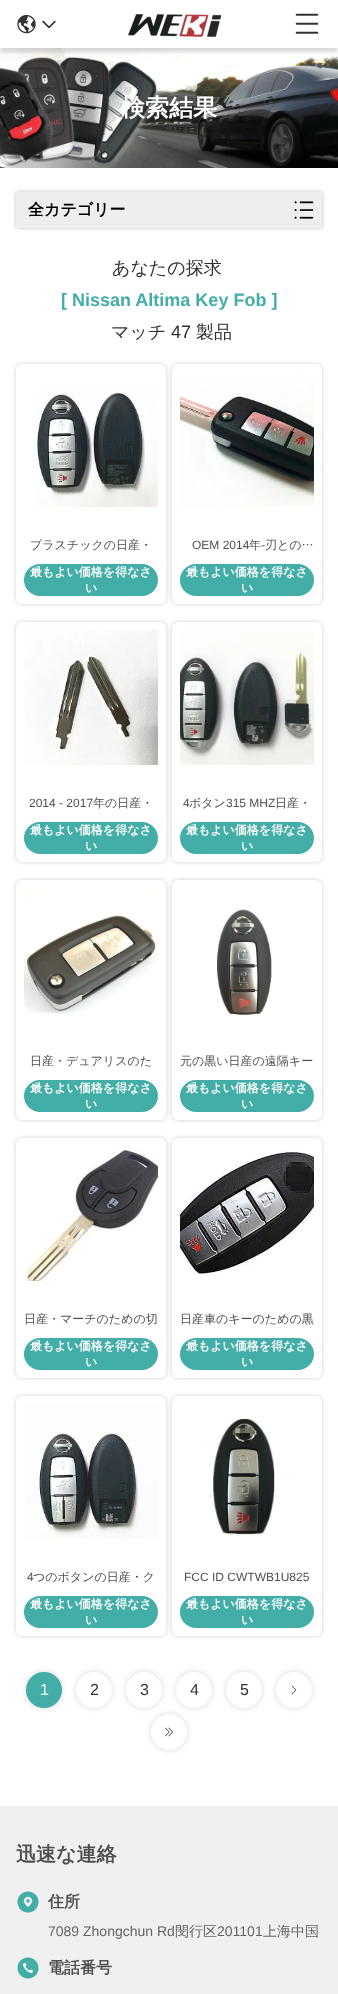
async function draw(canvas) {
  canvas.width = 338
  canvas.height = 1994
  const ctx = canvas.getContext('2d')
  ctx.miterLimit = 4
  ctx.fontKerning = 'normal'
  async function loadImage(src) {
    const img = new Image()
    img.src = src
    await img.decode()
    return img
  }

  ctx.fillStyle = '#fff'
  ctx.fillRect(0, 0, 338, 1994)
  ctx.drawImage(await loadImage('image4.png'), 0, 48, 338, 120)
  ctx.save()
  ctx.beginPath()
  ctx.rect(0, 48, 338, 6)
  ctx.clip()
  ctx.fillStyle = '#00000026'
  ctx.filter = 'blur(2px)'
  ctx.beginPath()
  ctx.rect(0, 4, 338, 48)
  ctx.fill()
  ctx.filter = 'none'
  ctx.restore()
  ctx.drawImage(await loadImage('image0.png'), 17, 14, 19, 20)
  ctx.drawImage(await loadImage('image1.png'), 42, 20, 14, 9)
  ctx.drawImage(await loadImage('image2.png'), 128, 13, 94, 24)
  ctx.drawImage(await loadImage('image3.png'), 295, 13, 24, 21)
  ctx.font = 'bold 24px WenQuanYi Zen Hei'
  ctx.fillText('検索結果', 121, 116)
  ctx.fillStyle = '#00000040'
  ctx.filter = 'blur(2px)'
  ctx.beginPath()
  ctx.rect(16, 192, 306, 36)
  ctx.fill()
  ctx.filter = 'none'
  ctx.fillStyle = '#eee'
  ctx.fillRect(16, 192, 306, 36)
  ctx.font = 'bold 16px WenQuanYi Zen Hei'
  ctx.fillStyle = '#000'
  ctx.fillText('全カテゴリー', 28, 215)
  ctx.drawImage(await loadImage('image5.png'), 294, 201, 20, 18)
  ctx.font = '500 18px WenQuanYi Zen Hei'
  ctx.fillStyle = '#323232'
  ctx.fillText('あなたの探求', 112, 274)
  ctx.font = 'bold 18px Liberation Sans'
  ctx.fillStyle = '#43ada7'
  ctx.fillText('[ Nissan Altima Key Fob ]', 61, 306)
  ctx.font = '500 18px WenQuanYi Zen Hei'
  ctx.fillStyle = '#323232'
  ctx.fillText('マッチ', 111, 338)
  ctx.font = '18px Liberation Sans'
  ctx.fillText('47', 171, 338)
  ctx.font = '500 18px WenQuanYi Zen Hei'
  ctx.fillText('製品', 196, 338)
  ctx.fillStyle = '#00000033'
  ctx.filter = 'blur(2px)'
  ctx.beginPath()
  ctx.roundRect(16, 364, 150, 240, 6)
  ctx.fill()
  ctx.filter = 'none'
  ctx.fillStyle = '#fff'
  ctx.beginPath()
  ctx.roundRect(16, 364, 150, 240, 6)
  ctx.fill()
  ctx.drawImage(await loadImage('image6.png'), 36, 386, 122, 121)
  ctx.font = '500 12px WenQuanYi Zen Hei'
  ctx.fillStyle = '#505050'
  ctx.fillText('プラスチックの日産・', 30, 549)
  ctx.fillStyle = '#43ada7'
  ctx.beginPath()
  ctx.roundRect(25, 565, 132, 30, 15)
  ctx.fill()
  ctx.strokeStyle = '#43ada7'
  ctx.lineWidth = 2
  ctx.stroke()
  ctx.save()
  ctx.beginPath()
  ctx.roundRect(26, 566, 130, 28, 14)
  ctx.clip()
  ctx.font = 'bold 12px WenQuanYi Zen Hei'
  ctx.fillStyle = '#fff'
  ctx.fillText('最もよい価格を得なさ', 30, 576)
  ctx.restore()
  ctx.font = 'bold 12px WenQuanYi Zen Hei'
  ctx.fillStyle = '#fff'
  ctx.fillText('い', 85, 592)
  ctx.fillStyle = '#00000033'
  ctx.filter = 'blur(2px)'
  ctx.beginPath()
  ctx.roundRect(172, 364, 150, 240, 6)
  ctx.fill()
  ctx.filter = 'none'
  ctx.fillStyle = '#fff'
  ctx.beginPath()
  ctx.roundRect(172, 364, 150, 240, 6)
  ctx.fill()
  ctx.drawImage(await loadImage('image7.png'), 180, 375, 134, 132)
  ctx.font = '12px Liberation Sans'
  ctx.fillStyle = '#505050'
  ctx.fillText('OEM 2014', 192, 549)
  ctx.font = '500 12px WenQuanYi Zen Hei'
  ctx.fillText('年', 249, 549)
  ctx.font = '12px Liberation Sans'
  ctx.fillText('-', 261, 549)
  ctx.font = '500 12px WenQuanYi Zen Hei'
  ctx.fillText('刃との…', 265, 549)
  ctx.fillStyle = '#43ada7'
  ctx.beginPath()
  ctx.roundRect(181, 565, 132, 30, 15)
  ctx.fill()
  ctx.stroke()
  ctx.save()
  ctx.beginPath()
  ctx.roundRect(182, 566, 130, 28, 14)
  ctx.clip()
  ctx.font = 'bold 12px WenQuanYi Zen Hei'
  ctx.fillStyle = '#fff'
  ctx.fillText('最もよい価格を得なさ', 186, 576)
  ctx.restore()
  ctx.font = 'bold 12px WenQuanYi Zen Hei'
  ctx.fillStyle = '#fff'
  ctx.fillText('い', 241, 592)
  ctx.fillStyle = '#00000033'
  ctx.filter = 'blur(2px)'
  ctx.beginPath()
  ctx.roundRect(16, 622, 150, 240, 6)
  ctx.fill()
  ctx.filter = 'none'
  ctx.fillStyle = '#fff'
  ctx.beginPath()
  ctx.roundRect(16, 622, 150, 240, 6)
  ctx.fill()
  ctx.drawImage(await loadImage('image8.png'), 24, 630, 134, 135)
  ctx.font = '12px Liberation Sans'
  ctx.fillStyle = '#505050'
  ctx.fillText('2014 - 2017', 29, 807)
  ctx.font = '500 12px WenQuanYi Zen Hei'
  ctx.fillText('年の日産・', 93, 807)
  ctx.fillStyle = '#43ada7'
  ctx.beginPath()
  ctx.roundRect(25, 823, 132, 30, 15)
  ctx.fill()
  ctx.stroke()
  ctx.save()
  ctx.beginPath()
  ctx.roundRect(26, 824, 130, 28, 14)
  ctx.clip()
  ctx.font = 'bold 12px WenQuanYi Zen Hei'
  ctx.fillStyle = '#fff'
  ctx.fillText('最もよい価格を得なさ', 30, 834)
  ctx.restore()
  ctx.font = 'bold 12px WenQuanYi Zen Hei'
  ctx.fillStyle = '#fff'
  ctx.fillText('い', 85, 850)
  ctx.fillStyle = '#00000033'
  ctx.filter = 'blur(2px)'
  ctx.beginPath()
  ctx.roundRect(172, 622, 150, 240, 6)
  ctx.fill()
  ctx.filter = 'none'
  ctx.fillStyle = '#fff'
  ctx.beginPath()
  ctx.roundRect(172, 622, 150, 240, 6)
  ctx.fill()
  ctx.drawImage(await loadImage('image9.png'), 180, 630, 134, 135)
  ctx.font = '12px Liberation Sans'
  ctx.fillStyle = '#505050'
  ctx.fillText('4', 183, 807)
  ctx.font = '500 12px WenQuanYi Zen Hei'
  ctx.fillText('ボタン', 189, 807)
  ctx.font = '12px Liberation Sans'
  ctx.fillText('315 MHZ', 226, 807)
  ctx.font = '500 12px WenQuanYi Zen Hei'
  ctx.fillText('日産・', 275, 807)
  ctx.fillStyle = '#43ada7'
  ctx.beginPath()
  ctx.roundRect(181, 823, 132, 30, 15)
  ctx.fill()
  ctx.stroke()
  ctx.save()
  ctx.beginPath()
  ctx.roundRect(182, 824, 130, 28, 14)
  ctx.clip()
  ctx.font = 'bold 12px WenQuanYi Zen Hei'
  ctx.fillStyle = '#fff'
  ctx.fillText('最もよい価格を得なさ', 186, 834)
  ctx.restore()
  ctx.font = 'bold 12px WenQuanYi Zen Hei'
  ctx.fillStyle = '#fff'
  ctx.fillText('い', 241, 850)
  ctx.fillStyle = '#00000033'
  ctx.filter = 'blur(2px)'
  ctx.beginPath()
  ctx.roundRect(16, 880, 150, 240, 6)
  ctx.fill()
  ctx.filter = 'none'
  ctx.fillStyle = '#fff'
  ctx.beginPath()
  ctx.roundRect(16, 880, 150, 240, 6)
  ctx.fill()
  ctx.drawImage(await loadImage('image10.png'), 24, 888, 134, 127)
  ctx.font = '500 12px WenQuanYi Zen Hei'
  ctx.fillStyle = '#505050'
  ctx.fillText('日産・デュアリスのた', 30, 1065)
  ctx.fillStyle = '#43ada7'
  ctx.beginPath()
  ctx.roundRect(25, 1081, 132, 30, 15)
  ctx.fill()
  ctx.stroke()
  ctx.save()
  ctx.beginPath()
  ctx.roundRect(26, 1082, 130, 28, 14)
  ctx.clip()
  ctx.font = 'bold 12px WenQuanYi Zen Hei'
  ctx.fillStyle = '#fff'
  ctx.fillText('最もよい価格を得なさ', 30, 1092)
  ctx.restore()
  ctx.font = 'bold 12px WenQuanYi Zen Hei'
  ctx.fillStyle = '#fff'
  ctx.fillText('い', 85, 1108)
  ctx.fillStyle = '#00000033'
  ctx.filter = 'blur(2px)'
  ctx.beginPath()
  ctx.roundRect(172, 880, 150, 240, 6)
  ctx.fill()
  ctx.filter = 'none'
  ctx.fillStyle = '#fff'
  ctx.beginPath()
  ctx.roundRect(172, 880, 150, 240, 6)
  ctx.fill()
  ctx.drawImage(await loadImage('image11.png'), 217, 909, 55, 106)
  ctx.font = '500 12px WenQuanYi Zen Hei'
  ctx.fillStyle = '#505050'
  ctx.fillText('元の黒い日産の遠隔キー', 180, 1065)
  ctx.fillStyle = '#43ada7'
  ctx.beginPath()
  ctx.roundRect(181, 1081, 132, 30, 15)
  ctx.fill()
  ctx.stroke()
  ctx.save()
  ctx.beginPath()
  ctx.roundRect(182, 1082, 130, 28, 14)
  ctx.clip()
  ctx.font = 'bold 12px WenQuanYi Zen Hei'
  ctx.fillStyle = '#fff'
  ctx.fillText('最もよい価格を得なさ', 186, 1092)
  ctx.restore()
  ctx.font = 'bold 12px WenQuanYi Zen Hei'
  ctx.fillStyle = '#fff'
  ctx.fillText('い', 241, 1108)
  ctx.fillStyle = '#00000033'
  ctx.filter = 'blur(2px)'
  ctx.beginPath()
  ctx.roundRect(16, 1138, 150, 240, 6)
  ctx.fill()
  ctx.filter = 'none'
  ctx.fillStyle = '#fff'
  ctx.beginPath()
  ctx.roundRect(16, 1138, 150, 240, 6)
  ctx.fill()
  ctx.drawImage(await loadImage('image12.png'), 26, 1146, 132, 135)
  ctx.font = '500 12px WenQuanYi Zen Hei'
  ctx.fillStyle = '#505050'
  ctx.fillText('日産・マーチのための切', 24, 1323)
  ctx.fillStyle = '#43ada7'
  ctx.beginPath()
  ctx.roundRect(25, 1339, 132, 30, 15)
  ctx.fill()
  ctx.stroke()
  ctx.save()
  ctx.beginPath()
  ctx.roundRect(26, 1340, 130, 28, 14)
  ctx.clip()
  ctx.font = 'bold 12px WenQuanYi Zen Hei'
  ctx.fillStyle = '#fff'
  ctx.fillText('最もよい価格を得なさ', 30, 1350)
  ctx.restore()
  ctx.font = 'bold 12px WenQuanYi Zen Hei'
  ctx.fillStyle = '#fff'
  ctx.fillText('い', 85, 1366)
  ctx.fillStyle = '#00000033'
  ctx.filter = 'blur(2px)'
  ctx.beginPath()
  ctx.roundRect(172, 1138, 150, 240, 6)
  ctx.fill()
  ctx.filter = 'none'
  ctx.fillStyle = '#fff'
  ctx.beginPath()
  ctx.roundRect(172, 1138, 150, 240, 6)
  ctx.fill()
  ctx.drawImage(await loadImage('image13.png'), 180, 1151, 134, 124)
  ctx.font = '500 12px WenQuanYi Zen Hei'
  ctx.fillStyle = '#505050'
  ctx.fillText('日産車のキーのための黒', 180, 1323)
  ctx.fillStyle = '#43ada7'
  ctx.beginPath()
  ctx.roundRect(181, 1339, 132, 30, 15)
  ctx.fill()
  ctx.stroke()
  ctx.save()
  ctx.beginPath()
  ctx.roundRect(182, 1340, 130, 28, 14)
  ctx.clip()
  ctx.font = 'bold 12px WenQuanYi Zen Hei'
  ctx.fillStyle = '#fff'
  ctx.fillText('最もよい価格を得なさ', 186, 1350)
  ctx.restore()
  ctx.font = 'bold 12px WenQuanYi Zen Hei'
  ctx.fillStyle = '#fff'
  ctx.fillText('い', 241, 1366)
  ctx.fillStyle = '#00000033'
  ctx.filter = 'blur(2px)'
  ctx.beginPath()
  ctx.roundRect(16, 1396, 150, 240, 6)
  ctx.fill()
  ctx.filter = 'none'
  ctx.fillStyle = '#fff'
  ctx.beginPath()
  ctx.roundRect(16, 1396, 150, 240, 6)
  ctx.fill()
  ctx.drawImage(await loadImage('image14.png'), 26, 1404, 132, 135)
  ctx.font = '12px Liberation Sans'
  ctx.fillStyle = '#505050'
  ctx.fillText('4', 27, 1581)
  ctx.font = '500 12px WenQuanYi Zen Hei'
  ctx.fillText('つのボタンの日産・ク', 33, 1581)
  ctx.fillStyle = '#43ada7'
  ctx.beginPath()
  ctx.roundRect(25, 1597, 132, 30, 15)
  ctx.fill()
  ctx.stroke()
  ctx.save()
  ctx.beginPath()
  ctx.roundRect(26, 1598, 130, 28, 14)
  ctx.clip()
  ctx.font = 'bold 12px WenQuanYi Zen Hei'
  ctx.fillStyle = '#fff'
  ctx.fillText('最もよい価格を得なさ', 30, 1608)
  ctx.restore()
  ctx.font = 'bold 12px WenQuanYi Zen Hei'
  ctx.fillStyle = '#fff'
  ctx.fillText('い', 85, 1624)
  ctx.fillStyle = '#00000033'
  ctx.filter = 'blur(2px)'
  ctx.beginPath()
  ctx.roundRect(172, 1396, 150, 240, 6)
  ctx.fill()
  ctx.filter = 'none'
  ctx.fillStyle = '#fff'
  ctx.beginPath()
  ctx.roundRect(172, 1396, 150, 240, 6)
  ctx.fill()
  ctx.drawImage(await loadImage('image15.png'), 213, 1419, 62, 116)
  ctx.font = '12px Liberation Sans'
  ctx.fillStyle = '#505050'
  ctx.fillText('FCC ID CWTWB1U825', 184, 1581)
  ctx.fillStyle = '#43ada7'
  ctx.beginPath()
  ctx.roundRect(181, 1597, 132, 30, 15)
  ctx.fill()
  ctx.stroke()
  ctx.save()
  ctx.beginPath()
  ctx.roundRect(182, 1598, 130, 28, 14)
  ctx.clip()
  ctx.font = 'bold 12px WenQuanYi Zen Hei'
  ctx.fillStyle = '#fff'
  ctx.fillText('最もよい価格を得なさ', 186, 1608)
  ctx.restore()
  ctx.font = 'bold 12px WenQuanYi Zen Hei'
  ctx.fillStyle = '#fff'
  ctx.fillText('い', 241, 1624)
  ctx.fillStyle = '#00000026'
  ctx.filter = 'blur(3px)'
  ctx.beginPath()
  ctx.roundRect(26, 1672, 36, 36, 18)
  ctx.fill()
  ctx.filter = 'none'
  ctx.fillStyle = '#43ada7'
  ctx.beginPath()
  ctx.arc(44, 1690, 18, 0, 2 * Math.PI)
  ctx.fill()
  ctx.font = '16px Liberation Sans'
  ctx.fillStyle = '#fff'
  ctx.fillText('1', 40, 1695)
  ctx.fillStyle = '#00000026'
  ctx.filter = 'blur(3px)'
  ctx.beginPath()
  ctx.roundRect(76, 1672, 36, 36, 18)
  ctx.fill()
  ctx.filter = 'none'
  ctx.fillStyle = '#fff'
  ctx.beginPath()
  ctx.arc(94, 1690, 18, 0, 2 * Math.PI)
  ctx.fill()
  ctx.fillStyle = '#323232'
  ctx.fillText('2', 90, 1695)
  ctx.fillStyle = '#00000026'
  ctx.filter = 'blur(3px)'
  ctx.beginPath()
  ctx.roundRect(126, 1672, 36, 36, 18)
  ctx.fill()
  ctx.filter = 'none'
  ctx.fillStyle = '#fff'
  ctx.beginPath()
  ctx.arc(144, 1690, 18, 0, 2 * Math.PI)
  ctx.fill()
  ctx.fillStyle = '#323232'
  ctx.fillText('3', 140, 1695)
  ctx.fillStyle = '#00000026'
  ctx.filter = 'blur(3px)'
  ctx.beginPath()
  ctx.roundRect(176, 1672, 36, 36, 18)
  ctx.fill()
  ctx.filter = 'none'
  ctx.fillStyle = '#fff'
  ctx.beginPath()
  ctx.arc(194, 1690, 18, 0, 2 * Math.PI)
  ctx.fill()
  ctx.fillStyle = '#323232'
  ctx.fillText('4', 190, 1695)
  ctx.fillStyle = '#00000026'
  ctx.filter = 'blur(3px)'
  ctx.beginPath()
  ctx.roundRect(226, 1672, 36, 36, 18)
  ctx.fill()
  ctx.filter = 'none'
  ctx.fillStyle = '#fff'
  ctx.beginPath()
  ctx.arc(244, 1690, 18, 0, 2 * Math.PI)
  ctx.fill()
  ctx.fillStyle = '#323232'
  ctx.fillText('5', 240, 1695)
  ctx.fillStyle = '#00000026'
  ctx.filter = 'blur(3px)'
  ctx.beginPath()
  ctx.roundRect(276, 1672, 36, 36, 18)
  ctx.fill()
  ctx.filter = 'none'
  ctx.fillStyle = '#fff'
  ctx.beginPath()
  ctx.arc(294, 1690, 18, 0, 2 * Math.PI)
  ctx.fill()
  ctx.drawImage(await loadImage('image16.png'), 291, 1685, 6, 10)
  ctx.fillStyle = '#00000026'
  ctx.filter = 'blur(3px)'
  ctx.beginPath()
  ctx.roundRect(151, 1714, 36, 36, 18)
  ctx.fill()
  ctx.filter = 'none'
  ctx.fillStyle = '#fff'
  ctx.beginPath()
  ctx.arc(169, 1732, 18, 0, 2 * Math.PI)
  ctx.fill()
  ctx.drawImage(await loadImage('image17.png'), 165, 1727, 8, 10)
  ctx.fillStyle = '#f0f0f0'
  ctx.fillRect(0, 1806, 338, 188)
  ctx.font = 'bold 20px WenQuanYi Zen Hei'
  ctx.fillStyle = '#505050'
  ctx.fillText('迅速な連絡', 16, 1861)
  ctx.drawImage(await loadImage('image18.png'), 17, 1891, 22, 22)
  ctx.font = 'bold 16px WenQuanYi Zen Hei'
  ctx.fillText('住所', 48, 1907)
  ctx.font = '14px Liberation Sans'
  ctx.fillStyle = '#646464'
  ctx.fillText('7089 Zhongchun Rd', 48, 1936)
  ctx.font = '500 14px WenQuanYi Zen Hei'
  ctx.fillText('閔行区', 175, 1936)
  ctx.font = '14px Liberation Sans'
  ctx.fillText('201101', 217, 1936)
  ctx.font = '500 14px WenQuanYi Zen Hei'
  ctx.fillText('上海中国', 263, 1936)
  ctx.drawImage(await loadImage('image19.png'), 17, 1957, 22, 22)
  ctx.font = 'bold 16px WenQuanYi Zen Hei'
  ctx.fillStyle = '#505050'
  ctx.fillText('電話番号', 48, 1973)
}

draw(document.querySelector('canvas'))
